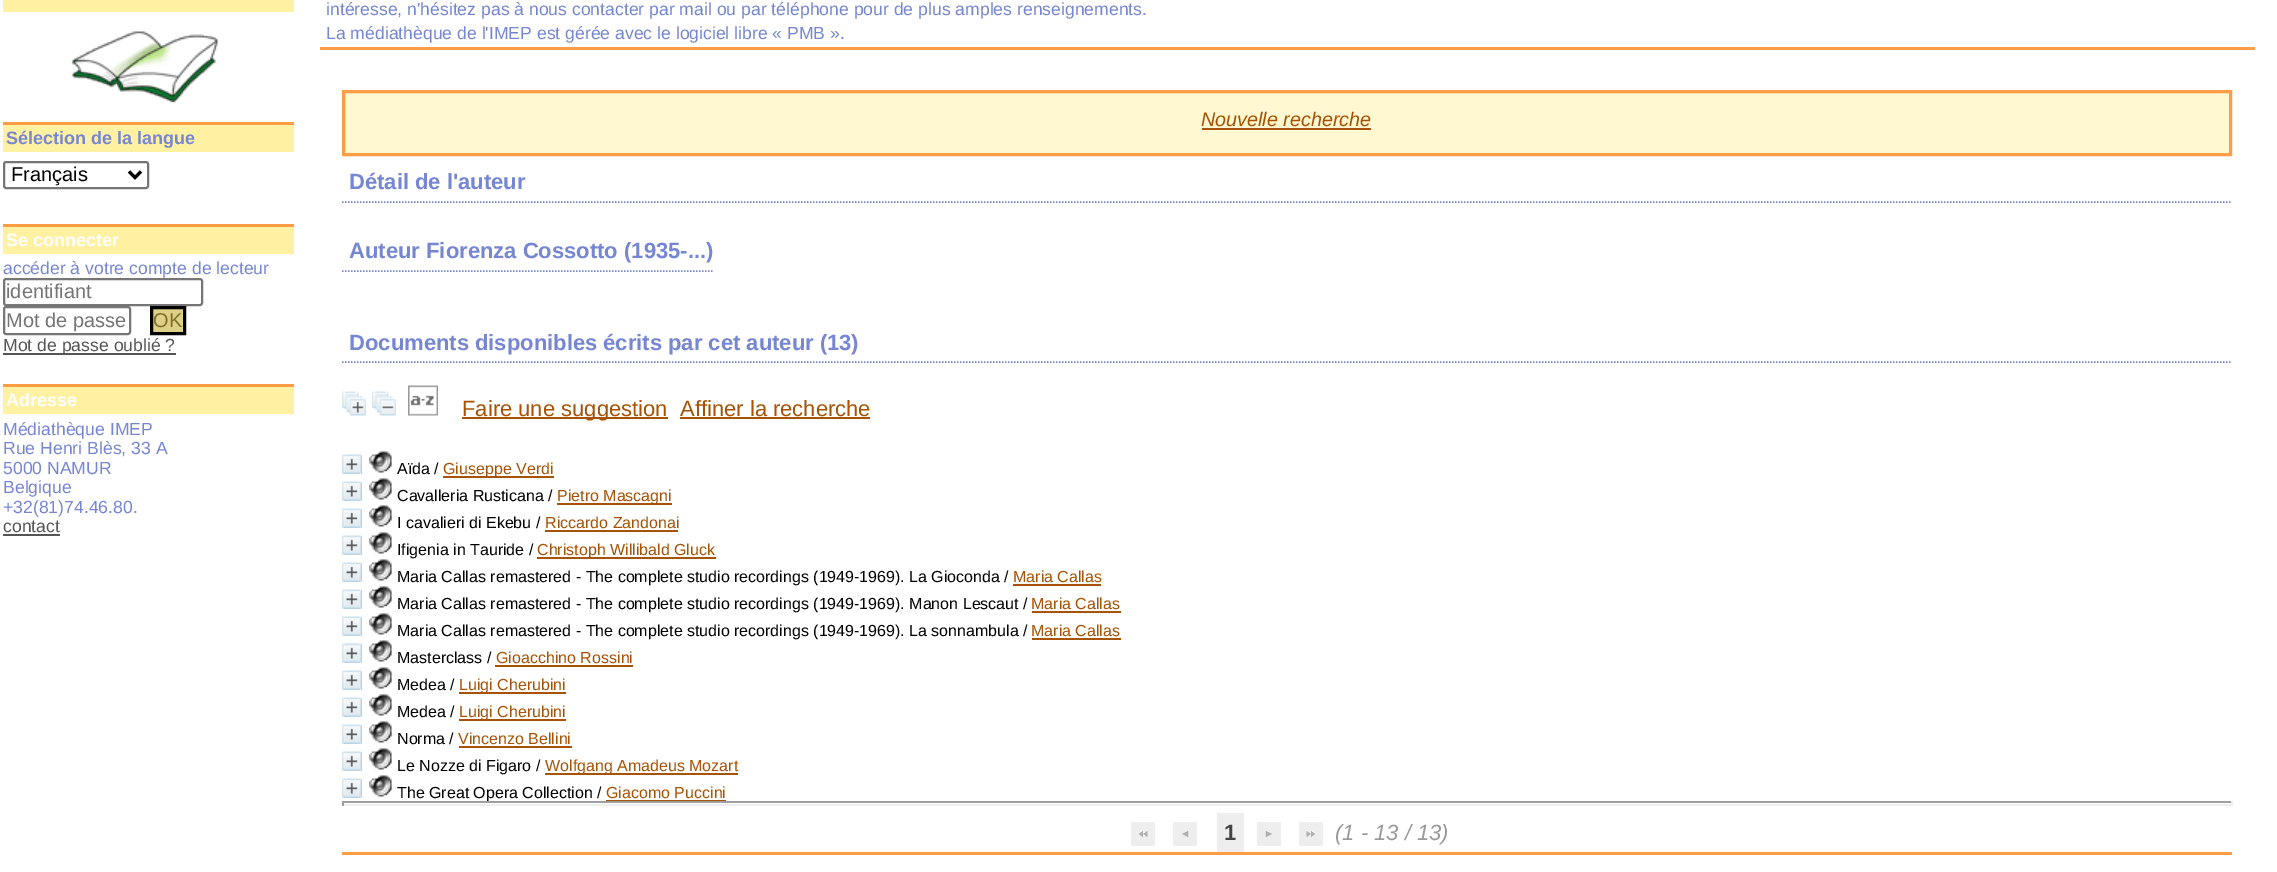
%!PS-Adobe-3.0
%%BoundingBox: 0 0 2277 872
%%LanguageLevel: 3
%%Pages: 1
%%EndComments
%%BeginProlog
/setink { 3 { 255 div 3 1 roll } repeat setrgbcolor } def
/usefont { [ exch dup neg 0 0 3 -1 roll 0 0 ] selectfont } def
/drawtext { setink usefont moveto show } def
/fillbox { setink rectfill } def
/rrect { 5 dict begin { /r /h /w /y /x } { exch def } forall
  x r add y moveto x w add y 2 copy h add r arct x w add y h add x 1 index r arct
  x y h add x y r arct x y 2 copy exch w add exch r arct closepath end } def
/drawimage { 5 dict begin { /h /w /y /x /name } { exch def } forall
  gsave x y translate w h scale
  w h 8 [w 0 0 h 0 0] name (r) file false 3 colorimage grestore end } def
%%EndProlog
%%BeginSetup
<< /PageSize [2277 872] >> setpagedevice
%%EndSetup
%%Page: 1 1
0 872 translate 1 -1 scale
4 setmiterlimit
0 0 2277 872 255 255 255 fillbox
320 47 1935 3 254 157 67 fillbox
(intéresse, n'hésitez pas à nous contacter par mail ou par téléphone pour de plus amples renseignements.) 326 15 /LiberationSans-Regular 17.6 118 134 210 drawtext
(La médiathèque de l'IMEP est gérée avec le logiciel libre « PMB ».) 326 39 /LiberationSans-Regular 17.6 118 134 210 drawtext
3 0 291 12 255 241 162 fillbox
(assets/img1.rgb) 71 31 147 72 drawimage
3 125 291 27 255 241 162 fillbox
3 122 291 3 254 157 67 fillbox
(Sélection de la langue) 6 144 /LiberationSans-Bold 18 118 134 210 drawtext
118 118 118 setink
2 setlinewidth
4 162 144 26 2 rrect stroke
0 0 0 setink
3 setlinewidth
129 171.5 moveto 135 177.5 lineto 141 171.5 lineto stroke
(Français) 11 181 /LiberationSans-Regular 20 0 0 0 drawtext
3 227 291 27 255 241 162 fillbox
3 224 291 3 254 157 67 fillbox
(Se connecter) 6 246 /LiberationSans-Bold 18 255 255 255 drawtext
(accéder à votre compte de lecteur) 3 274 /LiberationSans-Regular 17.6 118 134 210 drawtext
118 118 118 setink
2 setlinewidth
4 279 198 26 2 rrect stroke
(identifiant) 6 298 /LiberationSans-Regular 20 117 117 117 drawtext
118 118 118 setink
4 307 126 27 2 rrect stroke
(Mot de passe) 6 327 /LiberationSans-Regular 20 117 117 117 drawtext
223 208 135 setink
151.5 307.5 moveto 184.5 307.5 lineto 184.5 333.5 lineto 151.5 333.5 lineto closepath gsave fill grestore
0 0 0 setink
3 setlinewidth
stroke
(OK) 153 327 /LiberationSans-Regular 20 127 112 39 drawtext
3 353 173 2 85 85 85 fillbox
(Mot de passe oublié ?) 3 351 /LiberationSans-Regular 17.6 85 85 85 drawtext
3 387 291 27 255 241 162 fillbox
3 384 291 3 254 157 67 fillbox
(Adresse) 6 406 /LiberationSans-Bold 18 255 255 255 drawtext
(Médiathèque IMEP) 3 435 /LiberationSans-Regular 17.6 118 134 210 drawtext
(Rue Henri Blès, 33 A) 3 454 /LiberationSans-Regular 17.6 118 134 210 drawtext
(5000 NAMUR) 3 474 /LiberationSans-Regular 17.6 118 134 210 drawtext
(Belgique) 3 493 /LiberationSans-Regular 17.6 118 134 210 drawtext
(+32\(81\)74.46.80.) 3 513 /LiberationSans-Regular 17.6 118 134 210 drawtext
(contact) 3 532 /LiberationSans-Regular 17.6 85 85 85 drawtext
3 534 57 2 85 85 85 fillbox
255 248 209 setink
343.5 91.5 moveto 2230.5 91.5 lineto 2230.5 154.5 lineto 343.5 154.5 lineto closepath gsave fill grestore
254 157 67 setink
stroke
(Nouvelle recherche) 1201 126 /LiberationSans-Italic 19.75 167 82 4 drawtext
1202 128 169 2 167 82 4 fillbox
118 134 210 setink
1.5 setlinewidth
[1.5 1.5] 0 setdash
342 202 moveto 2232 202 lineto stroke
(Détail de l'auteur) 349 189 /LiberationSans-Bold 22 118 134 210 drawtext
342 271 moveto 712.5 271 lineto stroke
(Auteur Fiorenza Cossotto \(1935-...\)) 349 258 /LiberationSans-Bold 22 118 134 210 drawtext
342 362 moveto 2232 362 lineto stroke
(Documents disponibles écrits par cet auteur \() 349 350 /LiberationSans-Bold 22 118 134 210 drawtext
(13\)) 827 350 /LiberationSans-Bold 22 118 134 210 drawtext
(assets/img2.rgb) 342 391 24 25 drawimage
(assets/img3.rgb) 372 391 24 25 drawimage
(assets/img4.rgb) 408 385 30 31 drawimage
462 417 206 2 167 82 4 fillbox
(Faire une suggestion) 462 416 /LiberationSans-Regular 22 167 82 4 drawtext
(Affiner la recherche) 680 416 /LiberationSans-Regular 22 167 82 4 drawtext
680 417 190 2 167 82 4 fillbox
361 455 1 19 140 198 255 fillbox
(assets/img5.rgb) 342 454 20 20 drawimage
(assets/img6.rgb) 369 451 23 22 drawimage
(Aïda /) 397 474 /LiberationSans-Regular 16 0 0 0 drawtext
443 476 111 2 167 82 4 fillbox
(Giuseppe Verdi) 443 474 /LiberationSans-Regular 16 167 82 4 drawtext
361 482 1 19 140 198 255 fillbox
(assets/img5.rgb) 342 481 20 20 drawimage
(assets/img6.rgb) 369 478 23 22 drawimage
(Cavalleria Rusticana /) 397 501 /LiberationSans-Regular 16 0 0 0 drawtext
557 503 115 2 167 82 4 fillbox
(Pietro Mascagni) 557 501 /LiberationSans-Regular 16 167 82 4 drawtext
361 509 1 19 140 198 255 fillbox
(assets/img5.rgb) 342 508 20 20 drawimage
(assets/img6.rgb) 369 505 23 22 drawimage
(I cavalieri di Ekebu /) 397 528 /LiberationSans-Regular 16 0 0 0 drawtext
(Riccardo Zandonai) 545 528 /LiberationSans-Regular 16 167 82 4 drawtext
545 530 133 2 167 82 4 fillbox
361 536 1 19 140 198 255 fillbox
(assets/img5.rgb) 342 535 20 20 drawimage
(assets/img6.rgb) 369 532 23 22 drawimage
(Ifigenia in Tauride /) 397 555 /LiberationSans-Regular 16 0 0 0 drawtext
537 557 179 2 167 82 4 fillbox
(Christoph Willibald Gluck) 537 555 /LiberationSans-Regular 16 167 82 4 drawtext
361 563 1 19 140 198 255 fillbox
(assets/img5.rgb) 342 562 20 20 drawimage
(assets/img6.rgb) 369 559 23 22 drawimage
(Maria Callas remastered - The complete studio recordings \(1949-1969\). La Gioconda /) 397 582 /LiberationSans-Regular 16 0 0 0 drawtext
(Maria Callas) 1013 582 /LiberationSans-Regular 16 167 82 4 drawtext
1013 584 88 2 167 82 4 fillbox
361 590 1 19 140 198 255 fillbox
(assets/img5.rgb) 342 589 20 20 drawimage
(assets/img6.rgb) 369 586 23 22 drawimage
(Maria Callas remastered - The complete studio recordings \(1949-1969\). Manon Lescaut /) 397 609 /LiberationSans-Regular 16 0 0 0 drawtext
(Maria Callas) 1031 609 /LiberationSans-Regular 16 167 82 4 drawtext
1032 611 89 2 167 82 4 fillbox
361 617 1 19 140 198 255 fillbox
(assets/img5.rgb) 342 616 20 20 drawimage
(assets/img6.rgb) 369 613 23 22 drawimage
(Maria Callas remastered - The complete studio recordings \(1949-1969\). La sonnambula /) 397 636 /LiberationSans-Regular 16 0 0 0 drawtext
(Maria Callas) 1031 636 /LiberationSans-Regular 16 167 82 4 drawtext
1032 638 89 2 167 82 4 fillbox
361 644 1 19 140 198 255 fillbox
(assets/img5.rgb) 342 643 20 20 drawimage
(assets/img6.rgb) 369 640 23 22 drawimage
(Masterclass /) 397 663 /LiberationSans-Regular 16 0 0 0 drawtext
(Gioacchino Rossini) 496 663 /LiberationSans-Regular 16 167 82 4 drawtext
495 665 138 2 167 82 4 fillbox
361 671 1 19 140 198 255 fillbox
(assets/img5.rgb) 342 670 20 20 drawimage
(assets/img6.rgb) 369 667 23 22 drawimage
(Medea /) 397 690 /LiberationSans-Regular 16 0 0 0 drawtext
459 692 107 2 167 82 4 fillbox
(Luigi Cherubini) 459 690 /LiberationSans-Regular 16 167 82 4 drawtext
361 698 1 19 140 198 255 fillbox
(assets/img5.rgb) 342 697 20 20 drawimage
(assets/img6.rgb) 369 694 23 22 drawimage
(Medea /) 397 717 /LiberationSans-Regular 16 0 0 0 drawtext
459 719 107 2 167 82 4 fillbox
(Luigi Cherubini) 459 717 /LiberationSans-Regular 16 167 82 4 drawtext
361 725 1 19 140 198 255 fillbox
(assets/img5.rgb) 342 724 20 20 drawimage
(assets/img6.rgb) 369 721 23 22 drawimage
(Norma /) 397 744 /LiberationSans-Regular 16 0 0 0 drawtext
(Vincenzo Bellini) 458 744 /LiberationSans-Regular 16 167 82 4 drawtext
459 746 113 2 167 82 4 fillbox
361 752 1 19 140 198 255 fillbox
(assets/img5.rgb) 342 751 20 20 drawimage
(assets/img6.rgb) 369 748 23 22 drawimage
(Le Nozze di Figaro /) 397 771 /LiberationSans-Regular 16 0 0 0 drawtext
545 773 193 2 167 82 4 fillbox
(Wolfgang Amadeus Mozart) 545 771 /LiberationSans-Regular 16 167 82 4 drawtext
361 779 1 19 140 198 255 fillbox
(assets/img5.rgb) 342 778 20 20 drawimage
(assets/img6.rgb) 369 775 23 22 drawimage
(The Great Opera Collection /) 397 798 /LiberationSans-Regular 16 0 0 0 drawtext
(Giacomo Puccini) 606 798 /LiberationSans-Regular 16 167 82 4 drawtext
606 800 120 1 167 82 4 fillbox
342 801 1890 2 159 159 159 fillbox
2231 801 2 5 238 238 238 fillbox
342 804 1890 2 238 238 238 fillbox
342 801 2 5 159 159 159 fillbox
1131 822 24 24 238 238 238 fillbox
(assets/img7.rgb) 1138 831 10 7 drawimage
1173 822 24 24 238 238 238 fillbox
(assets/img8.rgb) 1182 831 7 6 drawimage
1217 813 27 39 238 238 238 fillbox
(1) 1224 840 /LiberationSans-Bold 22 68 68 68 drawtext
1257 822 24 24 238 238 238 fillbox
(assets/img9.rgb) 1265 831 7 6 drawimage
1299 822 24 24 238 238 238 fillbox
(assets/img10.rgb) 1306 831 9 6 drawimage
(\(1 - 13 / 13\)) 1335 840 /LiberationSans-Italic 22 153 153 153 drawtext
342 852 1890 3 254 157 67 fillbox
showpage
%%EOF
